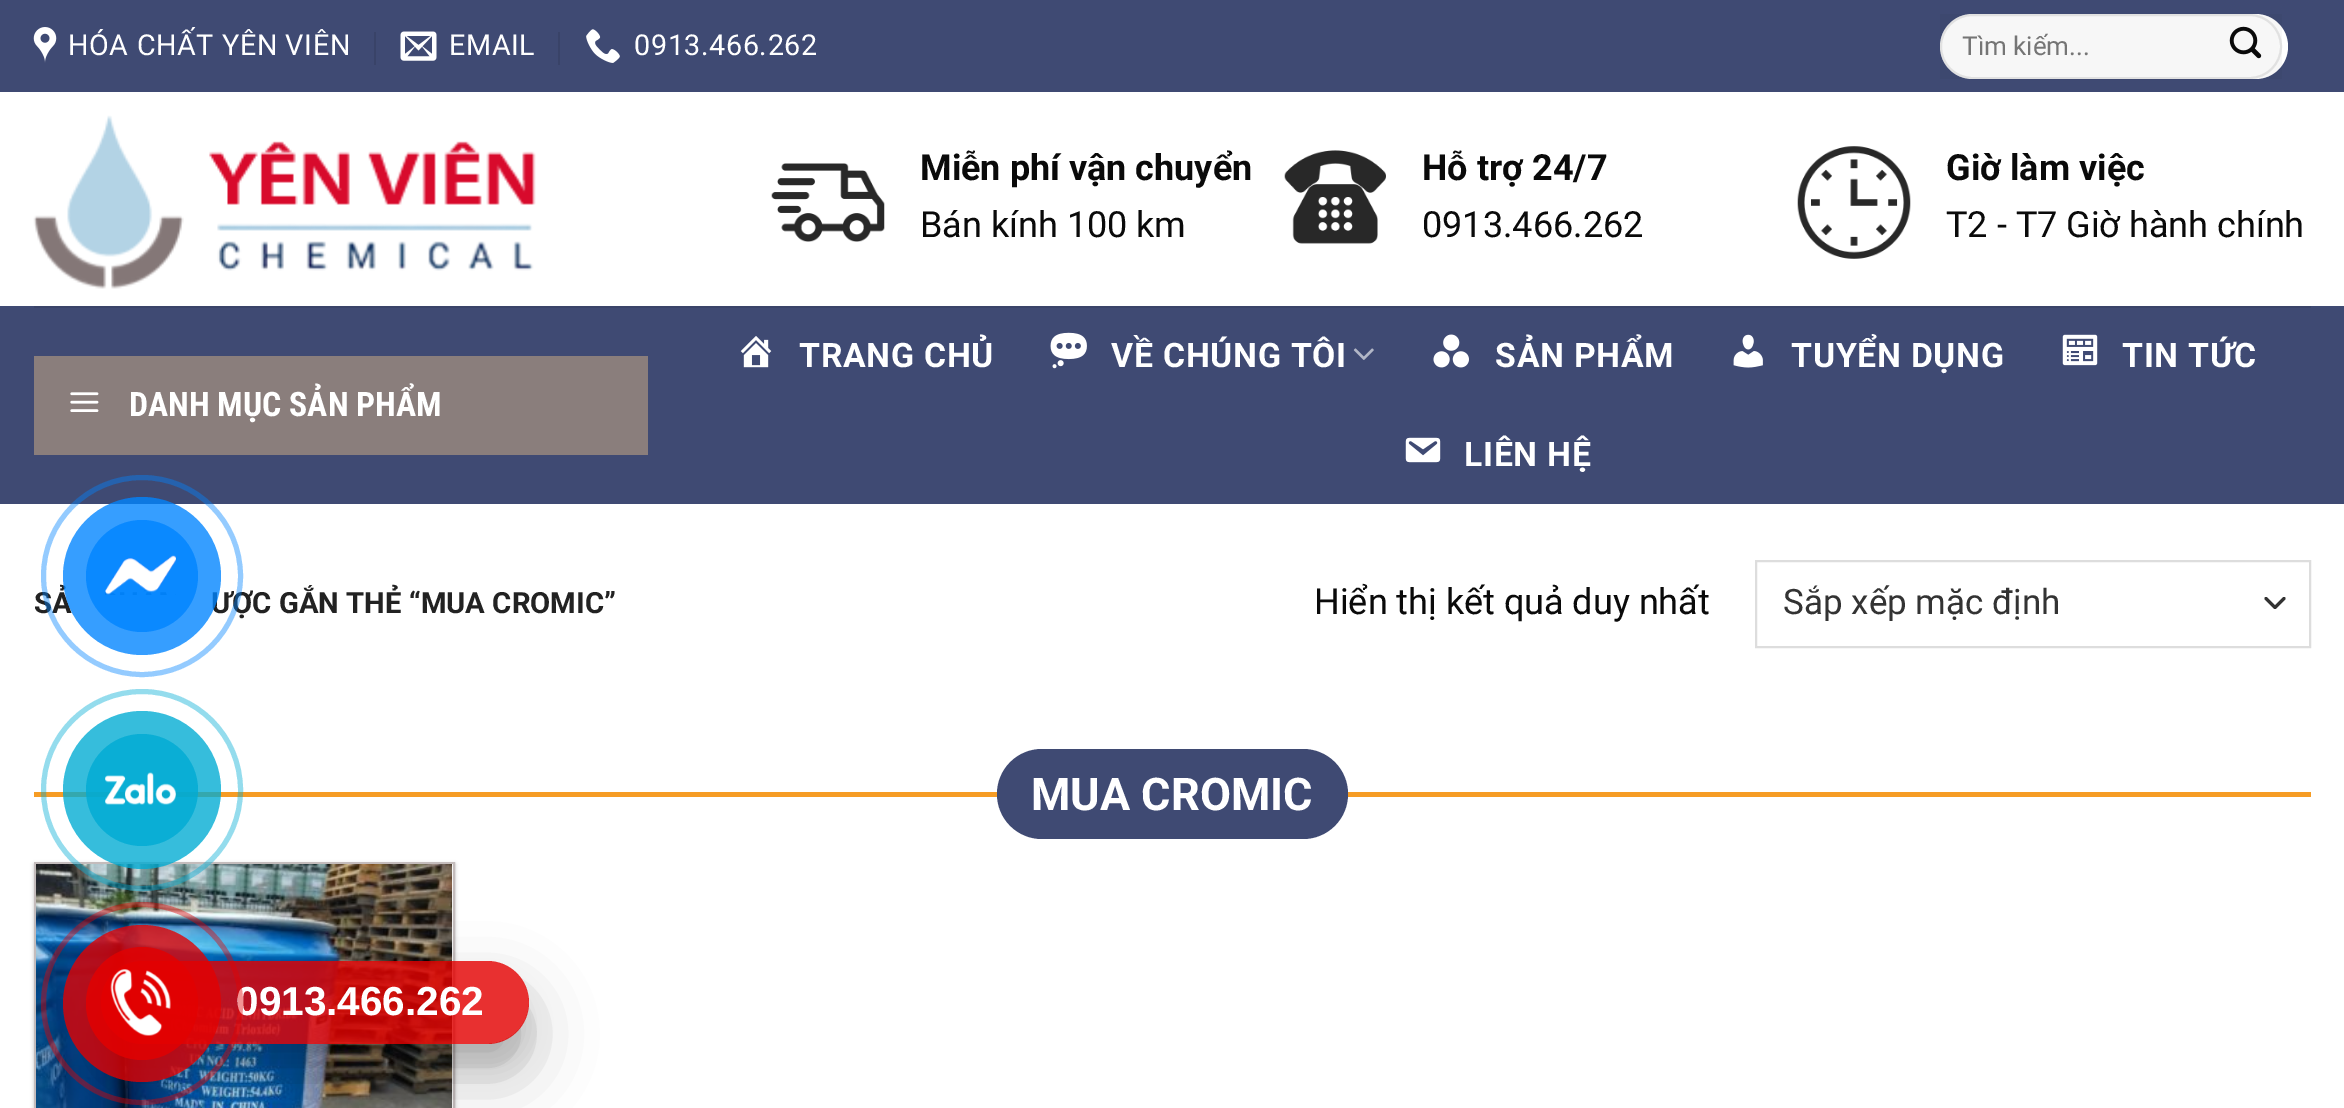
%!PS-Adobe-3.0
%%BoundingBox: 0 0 2344 1108
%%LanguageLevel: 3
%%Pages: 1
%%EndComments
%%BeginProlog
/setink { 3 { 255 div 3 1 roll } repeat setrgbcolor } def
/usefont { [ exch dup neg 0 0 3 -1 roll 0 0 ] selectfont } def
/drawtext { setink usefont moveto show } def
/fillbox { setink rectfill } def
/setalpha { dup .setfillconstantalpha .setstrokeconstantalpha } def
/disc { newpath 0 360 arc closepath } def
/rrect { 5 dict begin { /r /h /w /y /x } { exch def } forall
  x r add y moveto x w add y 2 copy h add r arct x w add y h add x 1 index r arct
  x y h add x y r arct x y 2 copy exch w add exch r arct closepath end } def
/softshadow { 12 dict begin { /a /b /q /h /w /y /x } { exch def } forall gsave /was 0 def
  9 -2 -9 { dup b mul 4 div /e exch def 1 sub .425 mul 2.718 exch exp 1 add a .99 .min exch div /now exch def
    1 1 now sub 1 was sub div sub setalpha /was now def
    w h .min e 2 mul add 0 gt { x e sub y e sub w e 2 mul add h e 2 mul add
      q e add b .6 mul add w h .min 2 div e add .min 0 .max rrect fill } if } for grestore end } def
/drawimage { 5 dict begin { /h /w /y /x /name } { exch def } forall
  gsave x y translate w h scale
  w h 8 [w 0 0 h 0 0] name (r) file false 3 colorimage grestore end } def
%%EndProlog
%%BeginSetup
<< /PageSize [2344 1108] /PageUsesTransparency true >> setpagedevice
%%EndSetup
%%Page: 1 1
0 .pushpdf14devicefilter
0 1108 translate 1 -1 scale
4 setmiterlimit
0 0 2344 1108 255 255 255 fillbox
0 0 2344 92 63 74 115 fillbox
(assets/img1.rgb) 33 27 24 36 drawimage
/Roboto-Regular 28.75 usefont
255 255 255 setink
68 55 moveto 0.6 0 (HÓA CHẤT YÊN VIÊN) ashow
374 32 2 33 57 67 104 fillbox
(assets/img2.rgb) 400 31 37 30 drawimage
255 255 255 setink
449 55 moveto 0.6 0 (EMAIL) ashow
558 32 2 33 57 67 104 fillbox
(assets/img3.rgb) 586 29 34 34 drawimage
255 255 255 setink
634 55 moveto 0.6 0 (0913.466.262) ashow
1940 14 348 65 32.5 rrect fill
0.03 setalpha
1940 14 342 65 0 0 0 fillbox
0.09 setalpha
2 setlinewidth
1941 15 340 63 31.5 rrect stroke
1 setalpha
(Tìm kiếm...) 1962 55 /Roboto-Regular 26 117 117 117 drawtext
(assets/img4.rgb) 2229 26 33 33 drawimage
(assets/img5.rgb) 33 115 503 174 drawimage
(assets/img6.rgb) 771 163 114 79 drawimage
(Miễn phí vận chuyển) 920 180 /Roboto-Bold 36 10 10 10 drawtext
(Bán kính 100 km) 920 237 /Roboto-Regular 36 10 10 10 drawtext
(assets/img7.rgb) 1284 150 102 94 drawimage
(Hỗ trợ 24/7) 1422 180 /Roboto-Bold 36 10 10 10 drawtext
(0913.466.262) 1422 237 /Roboto-Regular 36 10 10 10 drawtext
(assets/img8.rgb) 1797 146 114 113 drawimage
(Giờ làm việc) 1946 180 /Roboto-Bold 36 10 10 10 drawtext
(T2 - T7 Giờ hành chính) 1946 237 /Roboto-Regular 36 10 10 10 drawtext
0 306 2344 198 63 74 115 fillbox
34 306 2277 2 58 68 105 fillbox
34 356 614 99 138 126 124 fillbox
(assets/img9.rgb) 70 392 29 20 drawimage
(DANH MỤC SẢN PHẨM) 129 416 /RobotoCondensed-Bold 33.75 255 255 255 drawtext
(assets/img10.rgb) 740 336 32 32 drawimage
/Roboto-Bold 33.75 usefont
799 367 moveto 0.75 0 (TRANG CHỦ) ashow
(assets/img11.rgb) 1050 332 37 37 drawimage
1111 367 moveto 0.75 0 (VỀ CHÚNG TÔI) ashow
(assets/img12.rgb) 1353 348 21 12 drawimage
(assets/img13.rgb) 1433 334 36 34 drawimage
1495 367 moveto 0.75 0 (SẢN PHẨM) ashow
(assets/img14.rgb) 1733 334 30 34 drawimage
1791 367 moveto 0.75 0 (TUYỂN DỤNG) ashow
(assets/img15.rgb) 2062 334 36 32 drawimage
2122 367 moveto 0.75 0 (TIN TỨC) ashow
(assets/img16.rgb) 1405 437 36 26 drawimage
1464 466 moveto 0.75 0 (LIÊN HỆ) ashow
(SẢ) 34 613 /Roboto-Bold 29.25 34 34 34 drawtext
(ƯỢC GẮN THẺ “MUA CROMIC”) 211 613 /Roboto-Bold 29.25 34 34 34 drawtext
(Hiển thị kết quả duy nhất) 1314 614 /Roboto-Regular 36 10 10 10 drawtext
51 51 51 setink
3 setlinewidth
1 setlinecap
1 setlinejoin
2266 598.5 moveto 2275 607.5 lineto 2284 598.5 lineto stroke
221 221 221 setink
2 setlinewidth
0 setlinecap
0 setlinejoin
1756 561 554 86 rectstroke
(Sắp xếp mặc định) 1783 614 /Roboto-Regular 35 51 51 51 drawtext
34 792 963 5 246 156 36 fillbox
63 74 115 setink
997 749 351 90 45 rrect fill
(MUA CROMIC) 1031 810 /Roboto-Bold 45 255 255 255 drawtext
1348 792 963 5 246 156 36 fillbox
0 0 0 setink
34 864 421 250 0 2 0.24 softshadow
452 864 1 244 255 255 255 fillbox
196 188 188 setink
35 863 419 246 rectstroke
(assets/img17.rgb) 36 864 417 244 drawimage
0.42 setalpha
0 132 255 setink
5 setlinewidth
142 576 98.5 disc stroke
0.79 setalpha
142 576 79 disc fill
0.81 setalpha
142 576 56 disc fill
1 setalpha
(assets/img18.rgb) 105 555 71 40 drawimage
0.42 setalpha
0 171 211 setink
142 790 98.5 disc stroke
0.79 setalpha
142 790 79 disc fill
0.81 setalpha
142 790 56 disc fill
1 setalpha
(assets/img19.rgb) 105 772 71 33 drawimage
gsave
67 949 moveto 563 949 lineto 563 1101 lineto 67 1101 lineto closepath 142.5 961 moveto 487.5 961 lineto 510.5 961 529 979.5 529 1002.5 curveto 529 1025.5 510.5 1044 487.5 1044 curveto 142.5 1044 lineto 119.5 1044 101 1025.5 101 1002.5 curveto 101 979.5 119.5 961 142.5 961 curveto closepath eoclip newpath
0 0 0 setink
101 983 428 84 42 11 0.1 softshadow
grestore
gsave
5 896 moveto 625 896 lineto 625 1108 lineto 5 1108 lineto closepath 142.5 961 moveto 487.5 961 lineto 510.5 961 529 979.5 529 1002.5 curveto 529 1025.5 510.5 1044 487.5 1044 curveto 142.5 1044 lineto 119.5 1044 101 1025.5 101 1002.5 curveto 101 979.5 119.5 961 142.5 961 curveto closepath eoclip newpath
0 0 0 setink
101 992 428 84 42 31.5 0.25 softshadow
grestore
0.81 setalpha
227 0 0 setink
101 961 428 83 41.5 rrect fill
1 setalpha
(0913.466.262) 236 1015 /LiberationSans-Bold 40.5 255 255 255 drawtext
0.42 setalpha
227 0 0 setink
43.5 904.5 197 198 98.5 rrect stroke
0.79 setalpha
63 925 158 157 78.5 rrect fill
0.81 setalpha
86 947 112 113 56 rrect fill
1 setalpha
(assets/img20.rgb) 110 969 61 67 drawimage
.poppdf14devicefilter showpage
%%EOF
